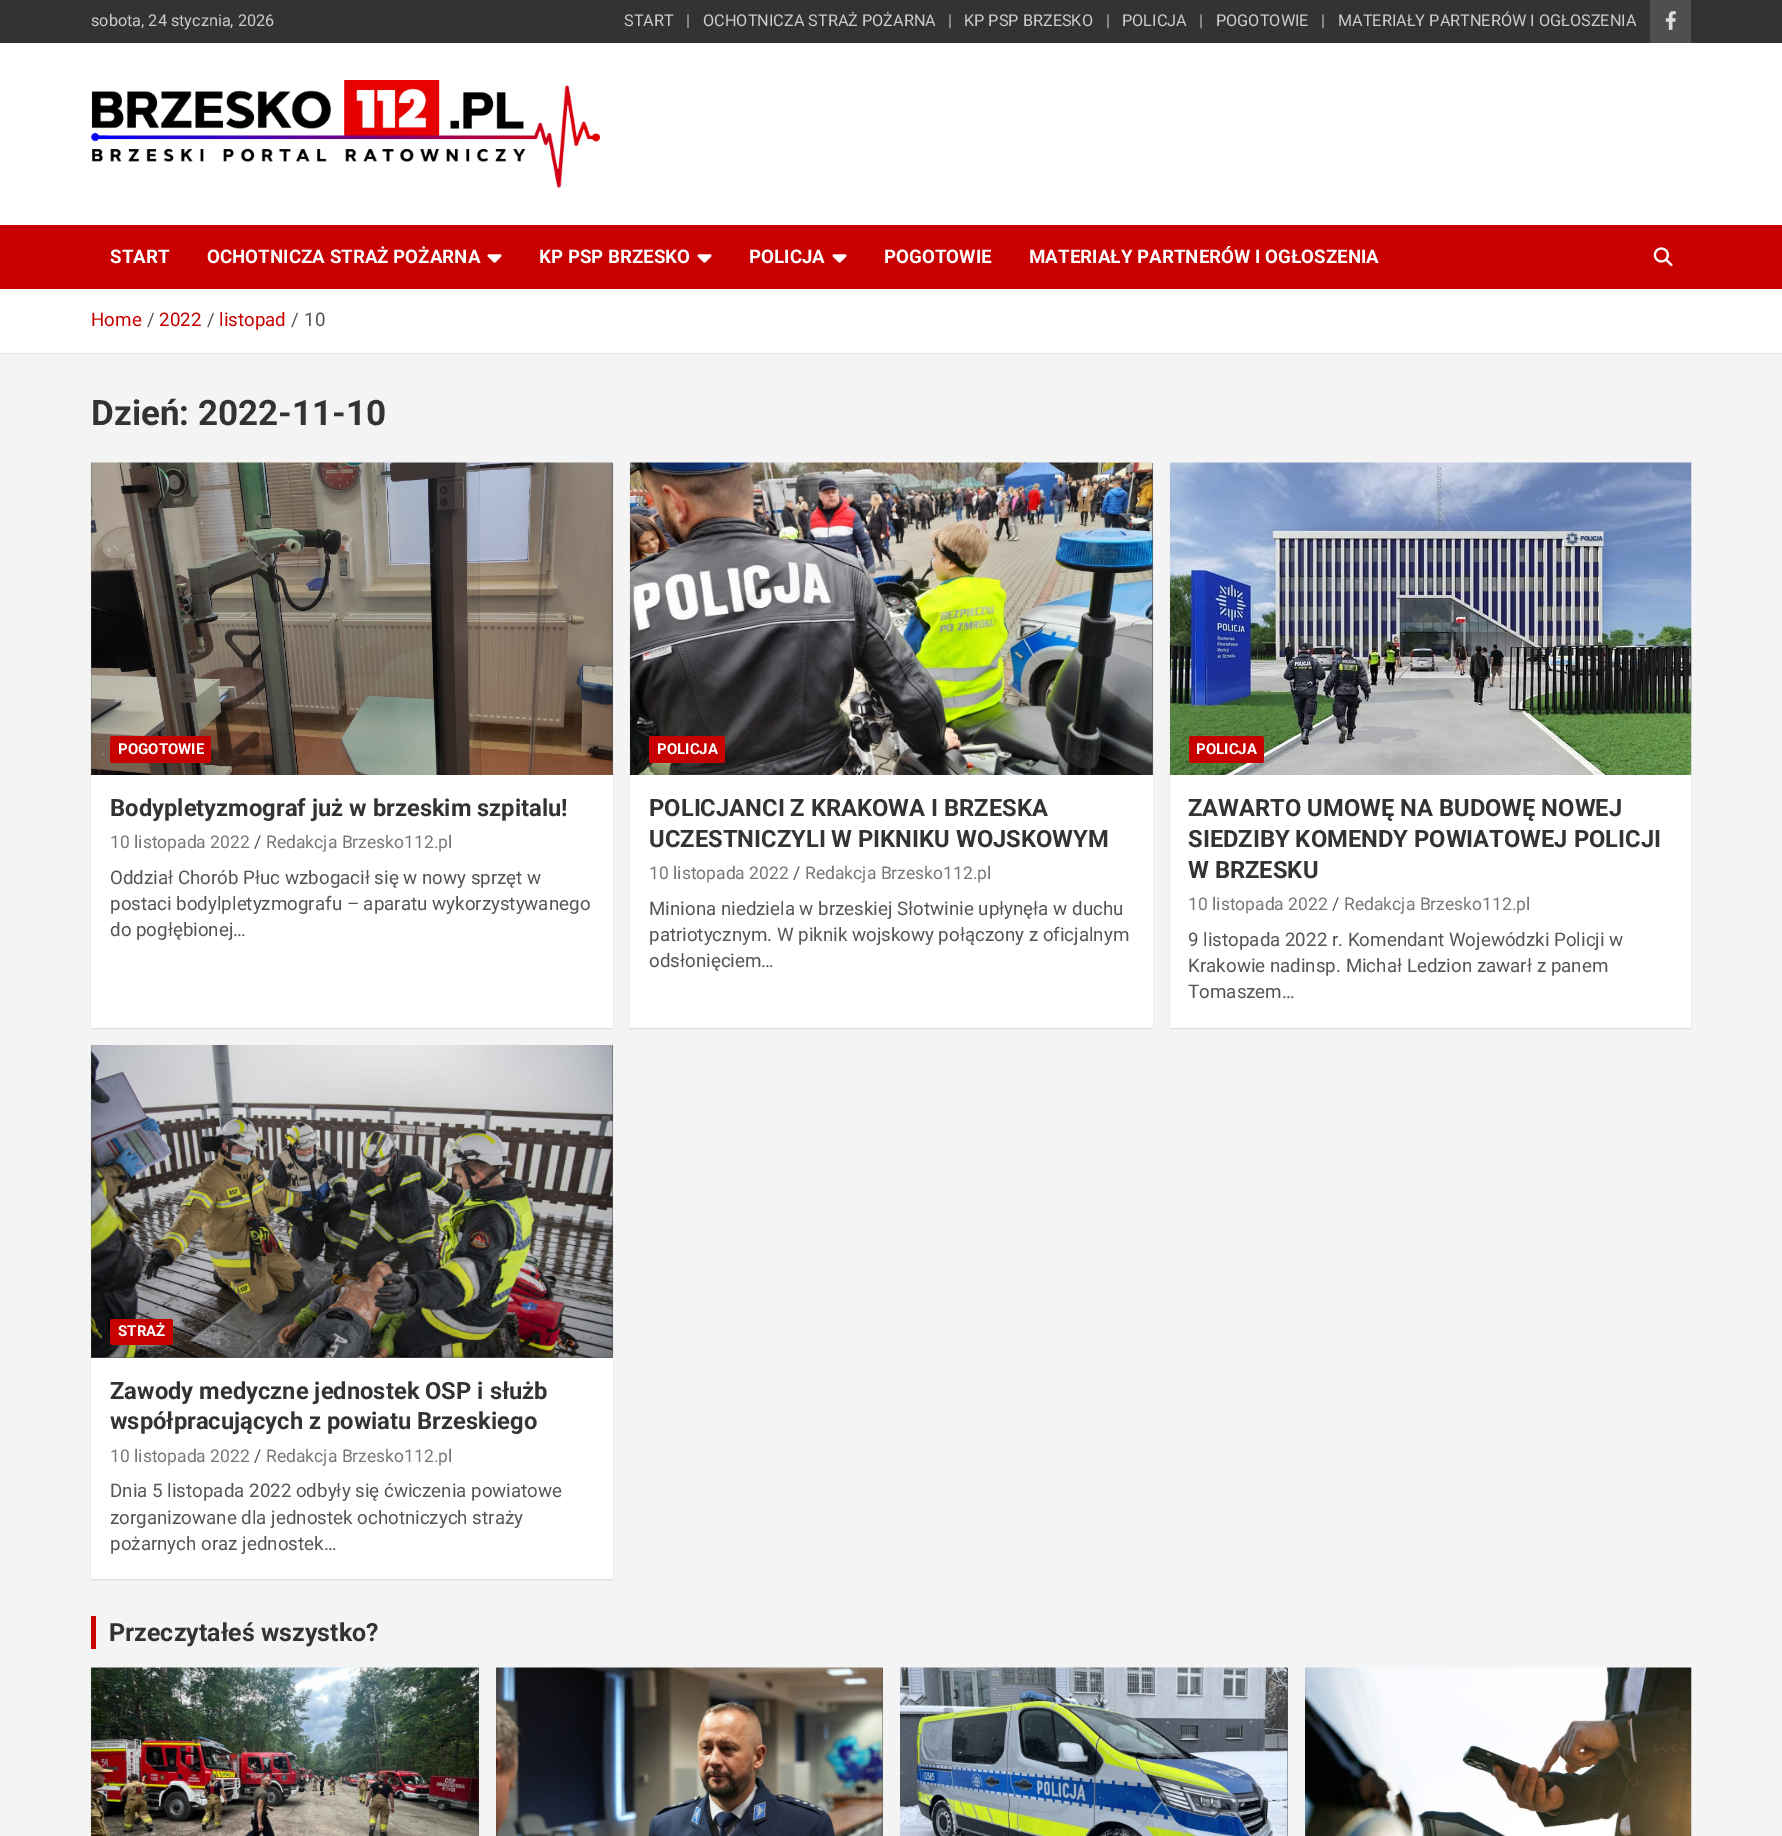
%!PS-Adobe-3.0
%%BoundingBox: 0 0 1782 1836
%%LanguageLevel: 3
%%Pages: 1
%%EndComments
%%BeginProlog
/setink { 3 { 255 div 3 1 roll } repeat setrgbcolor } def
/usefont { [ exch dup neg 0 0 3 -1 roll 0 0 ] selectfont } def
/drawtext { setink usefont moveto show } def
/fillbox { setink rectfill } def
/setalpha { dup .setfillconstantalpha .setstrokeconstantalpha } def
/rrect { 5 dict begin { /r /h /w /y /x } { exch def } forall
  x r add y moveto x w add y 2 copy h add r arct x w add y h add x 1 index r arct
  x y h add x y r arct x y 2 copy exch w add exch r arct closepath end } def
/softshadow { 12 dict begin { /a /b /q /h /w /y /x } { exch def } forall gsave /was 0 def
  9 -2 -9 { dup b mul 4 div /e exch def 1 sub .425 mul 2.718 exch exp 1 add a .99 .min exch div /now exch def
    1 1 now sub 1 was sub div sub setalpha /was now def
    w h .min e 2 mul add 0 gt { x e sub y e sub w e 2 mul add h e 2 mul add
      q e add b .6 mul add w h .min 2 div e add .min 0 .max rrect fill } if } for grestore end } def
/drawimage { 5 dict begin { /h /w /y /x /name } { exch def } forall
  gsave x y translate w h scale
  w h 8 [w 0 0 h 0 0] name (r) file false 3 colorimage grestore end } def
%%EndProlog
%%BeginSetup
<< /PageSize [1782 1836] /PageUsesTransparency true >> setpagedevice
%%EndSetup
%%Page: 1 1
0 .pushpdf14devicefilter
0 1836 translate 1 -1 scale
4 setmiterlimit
0 0 1782 1836 244 244 244 fillbox
0 0 1782 43 51 51 51 fillbox
(sobota, 24 stycznia, 2026) 91 26 /Roboto-Regular 16.25 204 204 204 drawtext
(START) 624 26 /Roboto-Regular 16.25 204 204 204 drawtext
(|) 686 26 /Roboto-Regular 16.25 204 204 204 drawtext
(OCHOTNICZA STRAŻ POŻARNA) 703 26 /Roboto-Regular 16.25 204 204 204 drawtext
(|) 948 26 /Roboto-Regular 16.25 204 204 204 drawtext
(KP PSP BRZESKO) 964 26 /Roboto-Regular 16.25 204 204 204 drawtext
(|) 1106 26 /Roboto-Regular 16.25 204 204 204 drawtext
(POLICJA) 1122 26 /Roboto-Regular 16.25 204 204 204 drawtext
(|) 1199 26 /Roboto-Regular 16.25 204 204 204 drawtext
(POGOTOWIE) 1216 26 /Roboto-Regular 16.25 204 204 204 drawtext
(|) 1321 26 /Roboto-Regular 16.25 204 204 204 drawtext
(MATERIAŁY PARTNERÓW I OGŁOSZENIA) 1338 26 /Roboto-Regular 16.25 204 204 204 drawtext
1650 0 41 43 79 79 79 fillbox
(assets/img1.rgb) 1665 11 11 19 drawimage
0 43 1782 182 255 255 255 fillbox
(assets/img2.rgb) 91 80 509 108 drawimage
0 225 1782 64 200 0 0 fillbox
(START) 110 263 /Roboto-Bold 18.75 255 255 255 drawtext
(OCHOTNICZA STRAŻ POŻARNA) 207 263 /Roboto-Bold 18.75 255 255 255 drawtext
(assets/img3.rgb) 487 254 15 9 drawimage
(KP PSP BRZESKO) 539 263 /Roboto-Bold 18.75 255 255 255 drawtext
(assets/img3.rgb) 697 254 15 9 drawimage
(POLICJA) 749 263 /Roboto-Bold 18.75 255 255 255 drawtext
(assets/img3.rgb) 832 254 15 9 drawimage
(POGOTOWIE) 884 263 /Roboto-Bold 18.75 255 255 255 drawtext
(MATERIAŁY PARTNERÓW I OGŁOSZENIA) 1029 263 /Roboto-Bold 18.75 255 255 255 drawtext
(assets/img4.rgb) 1653 247 20 20 drawimage
0 289 1782 64 255 255 255 fillbox
0 353 1782 1 230 230 230 fillbox
(Home) 91 326 /Roboto-Regular 18.75 200 0 0 drawtext
(/) 147 326 /Roboto-Regular 18.75 85 85 85 drawtext
(2022) 159 326 /Roboto-Regular 18.75 200 0 0 drawtext
(/) 207 326 /Roboto-Regular 18.75 85 85 85 drawtext
(listopad) 219 326 /Roboto-Regular 18.75 200 0 0 drawtext
(/) 291 326 /Roboto-Regular 18.75 85 85 85 drawtext
(10) 304 326 /Roboto-Regular 18.75 85 85 85 drawtext
(Dzień: 2022-11-10) 91 425 /Roboto-Bold 35 51 51 51 drawtext
0 0 0 setink
91 464 522 565 0 0.5 0.1 softshadow
91 775 522 253 255 255 255 fillbox
91 463 522 312 85 85 85 fillbox
(assets/img5.rgb) 91 462 522 313 drawimage
200 0 0 setink
110 736 101 27 2.5 rrect fill
(POGOTOWIE) 118 754 /Roboto-Bold 15 255 255 255 drawtext
(Bodypletyzmograf już w brzeskim szpitalu!) 110 816 /Roboto-Bold 23.75 51 51 51 drawtext
(10 listopada 2022) 110 848 /Roboto-Regular 17.5 119 119 119 drawtext
(/) 254 848 /Roboto-Regular 17.5 85 85 85 drawtext
(Redakcja Brzesko112.pl) 266 848 /Roboto-Regular 17.5 119 119 119 drawtext
(Oddział Chorób Płuc wzbogacił się w nowy sprzęt w) 110 884 /Roboto-Regular 18.75 85 85 85 drawtext
(postaci bodylpletyzmografu – aparatu wykorzystywanego) 110 910 /Roboto-Regular 18.75 85 85 85 drawtext
(do pogłębionej…) 110 936 /Roboto-Regular 18.75 85 85 85 drawtext
0 0 0 setink
630 464 523 565 0 0.5 0.1 softshadow
630 775 523 253 255 255 255 fillbox
1152 463 1 312 85 85 85 fillbox
(assets/img6.rgb) 630 462 523 313 drawimage
200 0 0 setink
649 736 76 27 2.5 rrect fill
(POLICJA) 657 754 /Roboto-Bold 15 255 255 255 drawtext
(POLICJANCI Z KRAKOWA I BRZESKA) 649 816 /Roboto-Bold 23.75 51 51 51 drawtext
(UCZESTNICZYLI W PIKNIKU WOJSKOWYM) 649 847 /Roboto-Bold 23.75 51 51 51 drawtext
(10 listopada 2022) 649 879 /Roboto-Regular 17.5 119 119 119 drawtext
(/) 793 879 /Roboto-Regular 17.5 85 85 85 drawtext
(Redakcja Brzesko112.pl) 805 879 /Roboto-Regular 17.5 119 119 119 drawtext
(Miniona niedziela w brzeskiej Słotwinie upłynęła w duchu) 649 915 /Roboto-Regular 18.75 85 85 85 drawtext
(patriotycznym. W piknik wojskowy połączony z oficjalnym) 649 941 /Roboto-Regular 18.75 85 85 85 drawtext
(odsłonięciem…) 649 967 /Roboto-Regular 18.75 85 85 85 drawtext
0 0 0 setink
1170 464 521 565 0 0.5 0.1 softshadow
1170 775 521 253 255 255 255 fillbox
(assets/img7.rgb) 1170 462 522 313 drawimage
200 0 0 setink
1189 736 75 27 2.5 rrect fill
(POLICJA) 1196 754 /Roboto-Bold 15 255 255 255 drawtext
(ZAWARTO UMOWĘ NA BUDOWĘ NOWEJ) 1188 816 /Roboto-Bold 23.75 51 51 51 drawtext
(SIEDZIBY KOMENDY POWIATOWEJ POLICJI) 1188 847 /Roboto-Bold 23.75 51 51 51 drawtext
(W BRZESKU) 1188 878 /Roboto-Bold 23.75 51 51 51 drawtext
(10 listopada 2022) 1188 910 /Roboto-Regular 17.5 119 119 119 drawtext
(/) 1332 910 /Roboto-Regular 17.5 85 85 85 drawtext
(Redakcja Brzesko112.pl) 1344 910 /Roboto-Regular 17.5 119 119 119 drawtext
(9 listopada 2022 r. Komendant Wojewódzki Policji w) 1188 946 /Roboto-Regular 18.75 85 85 85 drawtext
(Krakowie nadinsp. Michał Ledzion zawarł z panem) 1188 972 /Roboto-Regular 18.75 85 85 85 drawtext
(Tomaszem…) 1188 998 /Roboto-Regular 18.75 85 85 85 drawtext
0 0 0 setink
91 1046 522 534 0 0.5 0.1 softshadow
91 1358 522 221 255 255 255 fillbox
91 1045 522 313 85 85 85 fillbox
(assets/img8.rgb) 91 1045 522 313 drawimage
200 0 0 setink
110 1319 63 26 2.5 rrect fill
(STRAŻ) 118 1336 /Roboto-Bold 15 255 255 255 drawtext
(Zawody medyczne jednostek OSP i służb) 110 1399 /Roboto-Bold 23.75 51 51 51 drawtext
(współpracujących z powiatu Brzeskiego) 110 1429 /Roboto-Bold 23.75 51 51 51 drawtext
(10 listopada 2022) 110 1462 /Roboto-Regular 17.5 119 119 119 drawtext
(/) 254 1462 /Roboto-Regular 17.5 85 85 85 drawtext
(Redakcja Brzesko112.pl) 266 1462 /Roboto-Regular 17.5 119 119 119 drawtext
(Dnia 5 listopada 2022 odbyły się ćwiczenia powiatowe) 110 1497 /Roboto-Regular 18.75 85 85 85 drawtext
(zorganizowane dla jednostek ochotniczych straży) 110 1524 /Roboto-Regular 18.75 85 85 85 drawtext
(pożarnych oraz jednostek…) 110 1550 /Roboto-Regular 18.75 85 85 85 drawtext
91 1616 5 33 200 0 0 fillbox
(Przeczytałeś wszystko?) 109 1641 /Roboto-Bold 25 51 51 51 drawtext
0 0 0 setink
91 1669 388 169 0 0.5 0.1 softshadow
(assets/img9.rgb) 91 1667 388 169 drawimage
496 1668 387 168 85 85 85 fillbox
(assets/img10.rgb) 496 1667 387 169 drawimage
1287 1668 1 168 85 85 85 fillbox
(assets/img11.rgb) 900 1667 388 169 drawimage
(assets/img12.rgb) 1305 1667 387 169 drawimage
.poppdf14devicefilter showpage
%%EOF
